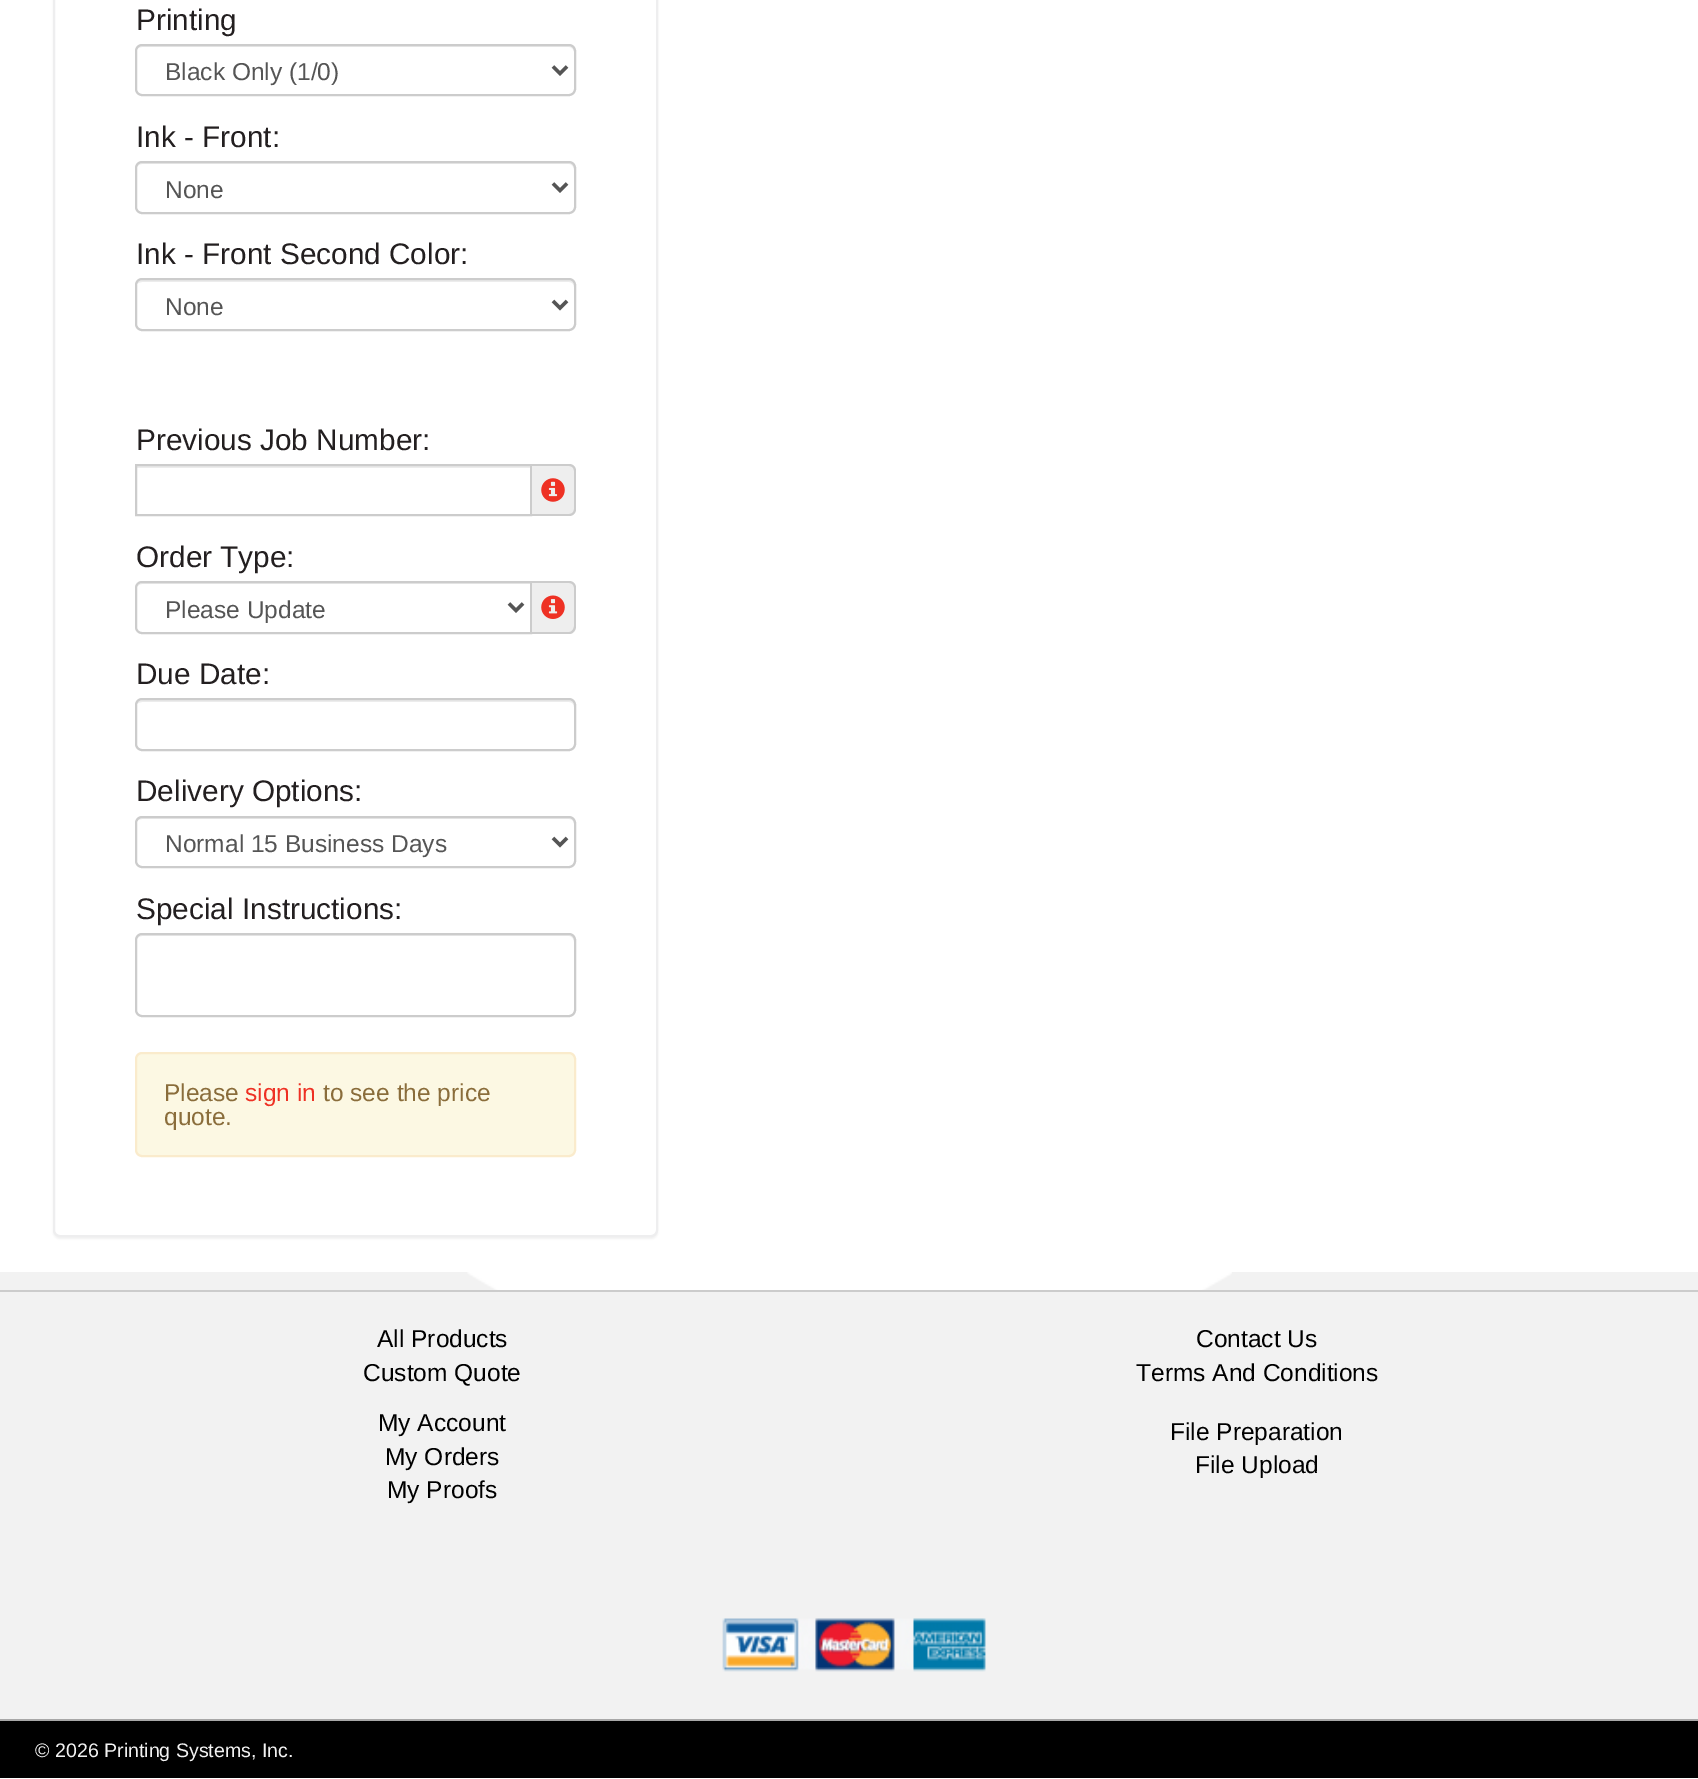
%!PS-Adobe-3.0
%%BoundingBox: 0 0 1698 1779
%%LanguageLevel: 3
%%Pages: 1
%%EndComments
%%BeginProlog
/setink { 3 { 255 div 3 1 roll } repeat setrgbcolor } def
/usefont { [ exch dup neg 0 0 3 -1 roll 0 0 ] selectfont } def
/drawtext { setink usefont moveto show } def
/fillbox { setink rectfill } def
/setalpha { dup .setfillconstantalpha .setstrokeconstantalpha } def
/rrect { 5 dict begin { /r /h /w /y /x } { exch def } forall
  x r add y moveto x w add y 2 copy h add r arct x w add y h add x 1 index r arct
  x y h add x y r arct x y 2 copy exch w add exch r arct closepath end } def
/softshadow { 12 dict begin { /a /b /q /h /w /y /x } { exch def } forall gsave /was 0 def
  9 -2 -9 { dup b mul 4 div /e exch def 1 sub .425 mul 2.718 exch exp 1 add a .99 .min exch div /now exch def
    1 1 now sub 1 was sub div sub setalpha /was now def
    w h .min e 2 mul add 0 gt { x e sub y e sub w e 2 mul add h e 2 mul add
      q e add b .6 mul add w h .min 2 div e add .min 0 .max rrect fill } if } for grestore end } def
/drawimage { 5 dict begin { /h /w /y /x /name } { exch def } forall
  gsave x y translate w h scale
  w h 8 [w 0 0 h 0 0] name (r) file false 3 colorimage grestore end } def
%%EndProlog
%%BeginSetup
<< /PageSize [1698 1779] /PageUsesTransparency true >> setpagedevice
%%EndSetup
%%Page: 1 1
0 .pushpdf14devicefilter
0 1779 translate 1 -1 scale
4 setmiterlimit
0 0 1698 1779 255 255 255 fillbox
gsave
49 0 moveto 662 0 lineto 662 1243 lineto 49 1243 lineto closepath 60 -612 moveto 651 -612 lineto 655 -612 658 -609 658 -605 curveto 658 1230 lineto 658 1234 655 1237 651 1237 curveto 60 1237 lineto 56 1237 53 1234 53 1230 curveto 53 -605 lineto 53 -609 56 -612 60 -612 curveto closepath eoclip newpath
0 0 0 setink
53 -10 605 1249 7 1 0.05 softshadow
grestore
238 238 239 setink
2 setlinewidth
54 -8 603 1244 6 rrect stroke
(Printing) 136 30 /LiberationSans-Regular 29.75 35 31 32 drawtext
236 236 236 setink
142 47 moveto 569 47 lineto 572 47 574 50 574 52 curveto 574 51 lineto 574 48 572 46 569 46 curveto 142 46 lineto 140 46 138 47 137 49 curveto 138 48 140 47 142 47 curveto closepath fill
204 204 204 setink
136 45 439 50 6 rrect stroke
85 85 85 setink
3.5 setlinewidth
553 66.5 moveto 560 73.5 lineto 567 66.5 lineto stroke
(Black Only \(1/0\)) 165 80 /LiberationSans-Regular 24.5 85 85 85 drawtext
(Ink - Front:) 136 147 /LiberationSans-Regular 29.75 35 31 32 drawtext
236 236 236 setink
142 164 moveto 569 164 lineto 572 164 574 167 574 170 curveto 574 168 lineto 574 165 572 163 569 163 curveto 142 163 lineto 140 163 138 165 137 167 curveto 138 165 140 164 142 164 curveto closepath fill
204 204 204 setink
2 setlinewidth
136 162 439 51 6 rrect stroke
85 85 85 setink
3.5 setlinewidth
553 183.5 moveto 560 190.5 lineto 567 183.5 lineto stroke
(None) 165 198 /LiberationSans-Regular 24.5 85 85 85 drawtext
(Ink - Front Second Color:) 136 264 /LiberationSans-Regular 29.75 35 31 32 drawtext
236 236 236 setink
142 282 moveto 569 282 lineto 572 282 574 284 574 287 curveto 574 284 573 280 569 280 curveto 142 280 lineto 140 280 137 282 137 284 curveto 138 283 140 282 142 282 curveto closepath fill
204 204 204 setink
2 setlinewidth
136 279 439 51 6 rrect stroke
85 85 85 setink
3.5 setlinewidth
553 301 moveto 560 308 lineto 567 301 lineto stroke
(None) 165 315 /LiberationSans-Regular 24.5 85 85 85 drawtext
(Previous Job Number:) 136 450 /LiberationSans-Regular 29.75 35 31 32 drawtext
137 466 393 2 236 236 236 fillbox
204 204 204 setink
2 setlinewidth
136 465 395 50 rectstroke
238 238 238 setink
532 464 moveto 569 464 lineto 573 464 576 467 576 471 curveto 576 509 lineto 576 513 573 516 569 516 curveto 532 516 lineto closepath fill
204 204 204 setink
532 464 moveto 569 464 lineto 573 464 576 467 576 471 curveto 576 509 lineto 576 513 573 516 569 516 curveto 532 516 lineto closepath 532 466 moveto 569 466 lineto 572 466 574 468 574 471 curveto 574 509 lineto 574 512 572 514 569 514 curveto 532 514 lineto closepath eofill
(assets/img1.rgb) 541 478 24 24 drawimage
(Order Type:) 136 567 /LiberationSans-Regular 29.75 35 31 32 drawtext
236 236 236 setink
142 584 moveto 530 584 lineto 530 583 lineto 142 583 lineto 140 583 138 585 137 587 curveto 138 585 140 584 142 584 curveto closepath fill
204 204 204 setink
142 582 moveto 531 582 lineto 531 633 lineto 142 633 lineto 138.5 633 136 630.5 136 627 curveto 136 588 lineto 136 584.5 138.5 582 142 582 curveto closepath stroke
85 85 85 setink
3.5 setlinewidth
509 603.5 moveto 516 610.5 lineto 523 603.5 lineto stroke
(Please Update) 165 618 /LiberationSans-Regular 24.5 85 85 85 drawtext
238 238 238 setink
532 581 moveto 569 581 lineto 573 581 576 584 576 588 curveto 576 627 lineto 576 631 573 634 569 634 curveto 532 634 lineto closepath fill
204 204 204 setink
532 581 moveto 569 581 lineto 573 581 576 584 576 588 curveto 576 626 lineto 576 630 573 634 569 634 curveto 532 634 lineto closepath 532 583 moveto 569 583 lineto 572 583 574 585 574 588 curveto 574 626 lineto 574 629 572 632 569 632 curveto 532 632 lineto closepath eofill
(assets/img2.rgb) 541 595 24 24 drawimage
(Due Date:) 136 684 /LiberationSans-Regular 29.75 35 31 32 drawtext
236 236 236 setink
142 702 moveto 569 702 lineto 572 702 574 704 574 707 curveto 574 704 573 700 569 700 curveto 142 700 lineto 140 700 137 702 137 704 curveto 138 703 140 702 142 702 curveto closepath fill
204 204 204 setink
2 setlinewidth
136 699 439 51 6 rrect stroke
(Delivery Options:) 136 801 /LiberationSans-Regular 29.75 35 31 32 drawtext
236 236 236 setink
142 819 moveto 569 819 lineto 572 819 574 821 574 824 curveto 574 821 573 817 569 817 curveto 142 817 lineto 140 817 137 819 137 821 curveto 138 820 140 819 142 819 curveto closepath fill
204 204 204 setink
136 817 439 50 6 rrect stroke
85 85 85 setink
3.5 setlinewidth
553 838 moveto 560 845 lineto 567 838 lineto stroke
(Normal 15 Business Days) 165 852 /LiberationSans-Regular 24.5 85 85 85 drawtext
(Special Instructions:) 136 919 /LiberationSans-Regular 29.75 35 31 32 drawtext
236 236 236 setink
142 936 moveto 569 936 lineto 572 936 574 939 574 942 curveto 574 940 lineto 574 937 572 935 569 935 curveto 142 935 lineto 140 935 138 937 137 939 curveto 138 937 140 936 142 936 curveto closepath fill
204 204 204 setink
2 setlinewidth
136 934 439 82 6 rrect stroke
252 248 227 setink
136 1053 439 103 6 rrect gsave fill grestore
250 235 204 setink
stroke
(Please) 164 1101 /LiberationSans-Regular 24.5 138 109 59 drawtext
(sign in) 245 1101 /LiberationSans-Regular 24.5 238 49 36 drawtext
(to see the price) 323 1101 /LiberationSans-Regular 24.5 138 109 59 drawtext
(quote.) 164 1125 /LiberationSans-Regular 24.5 138 109 59 drawtext
0 1272 1698 447 242 242 242 fillbox
(assets/img3.rgb) 467 1272 765 400 drawimage
499 1292 702 206 242 242 242 fillbox
0 1290 1698 2 204 204 204 fillbox
(All Products) 377 1347 /LiberationSans-Regular 24.5 0 0 0 drawtext
(Custom Quote) 363 1381 /LiberationSans-Regular 24.5 0 0 0 drawtext
(Contact Us) 1196 1347 /LiberationSans-Regular 24.5 0 0 0 drawtext
(Terms And Conditions) 1136 1381 /LiberationSans-Regular 24.5 0 0 0 drawtext
(My Account) 378 1431 /LiberationSans-Regular 24.5 0 0 0 drawtext
(My Orders) 385 1465 /LiberationSans-Regular 24.5 0 0 0 drawtext
(My Proofs) 387 1498 /LiberationSans-Regular 24.5 0 0 0 drawtext
(File Preparation) 1170 1440 /LiberationSans-Regular 24.5 0 0 0 drawtext
(File Upload) 1195 1473 /LiberationSans-Regular 24.5 0 0 0 drawtext
0 1721 1698 57 0 0 0 fillbox
0 1719 1698 2 168 168 168 fillbox
(© 2026 Printing Systems, Inc.) 35 1757 /LiberationSans-Regular 19.6 242 242 242 drawtext
.poppdf14devicefilter showpage
%%EOF
